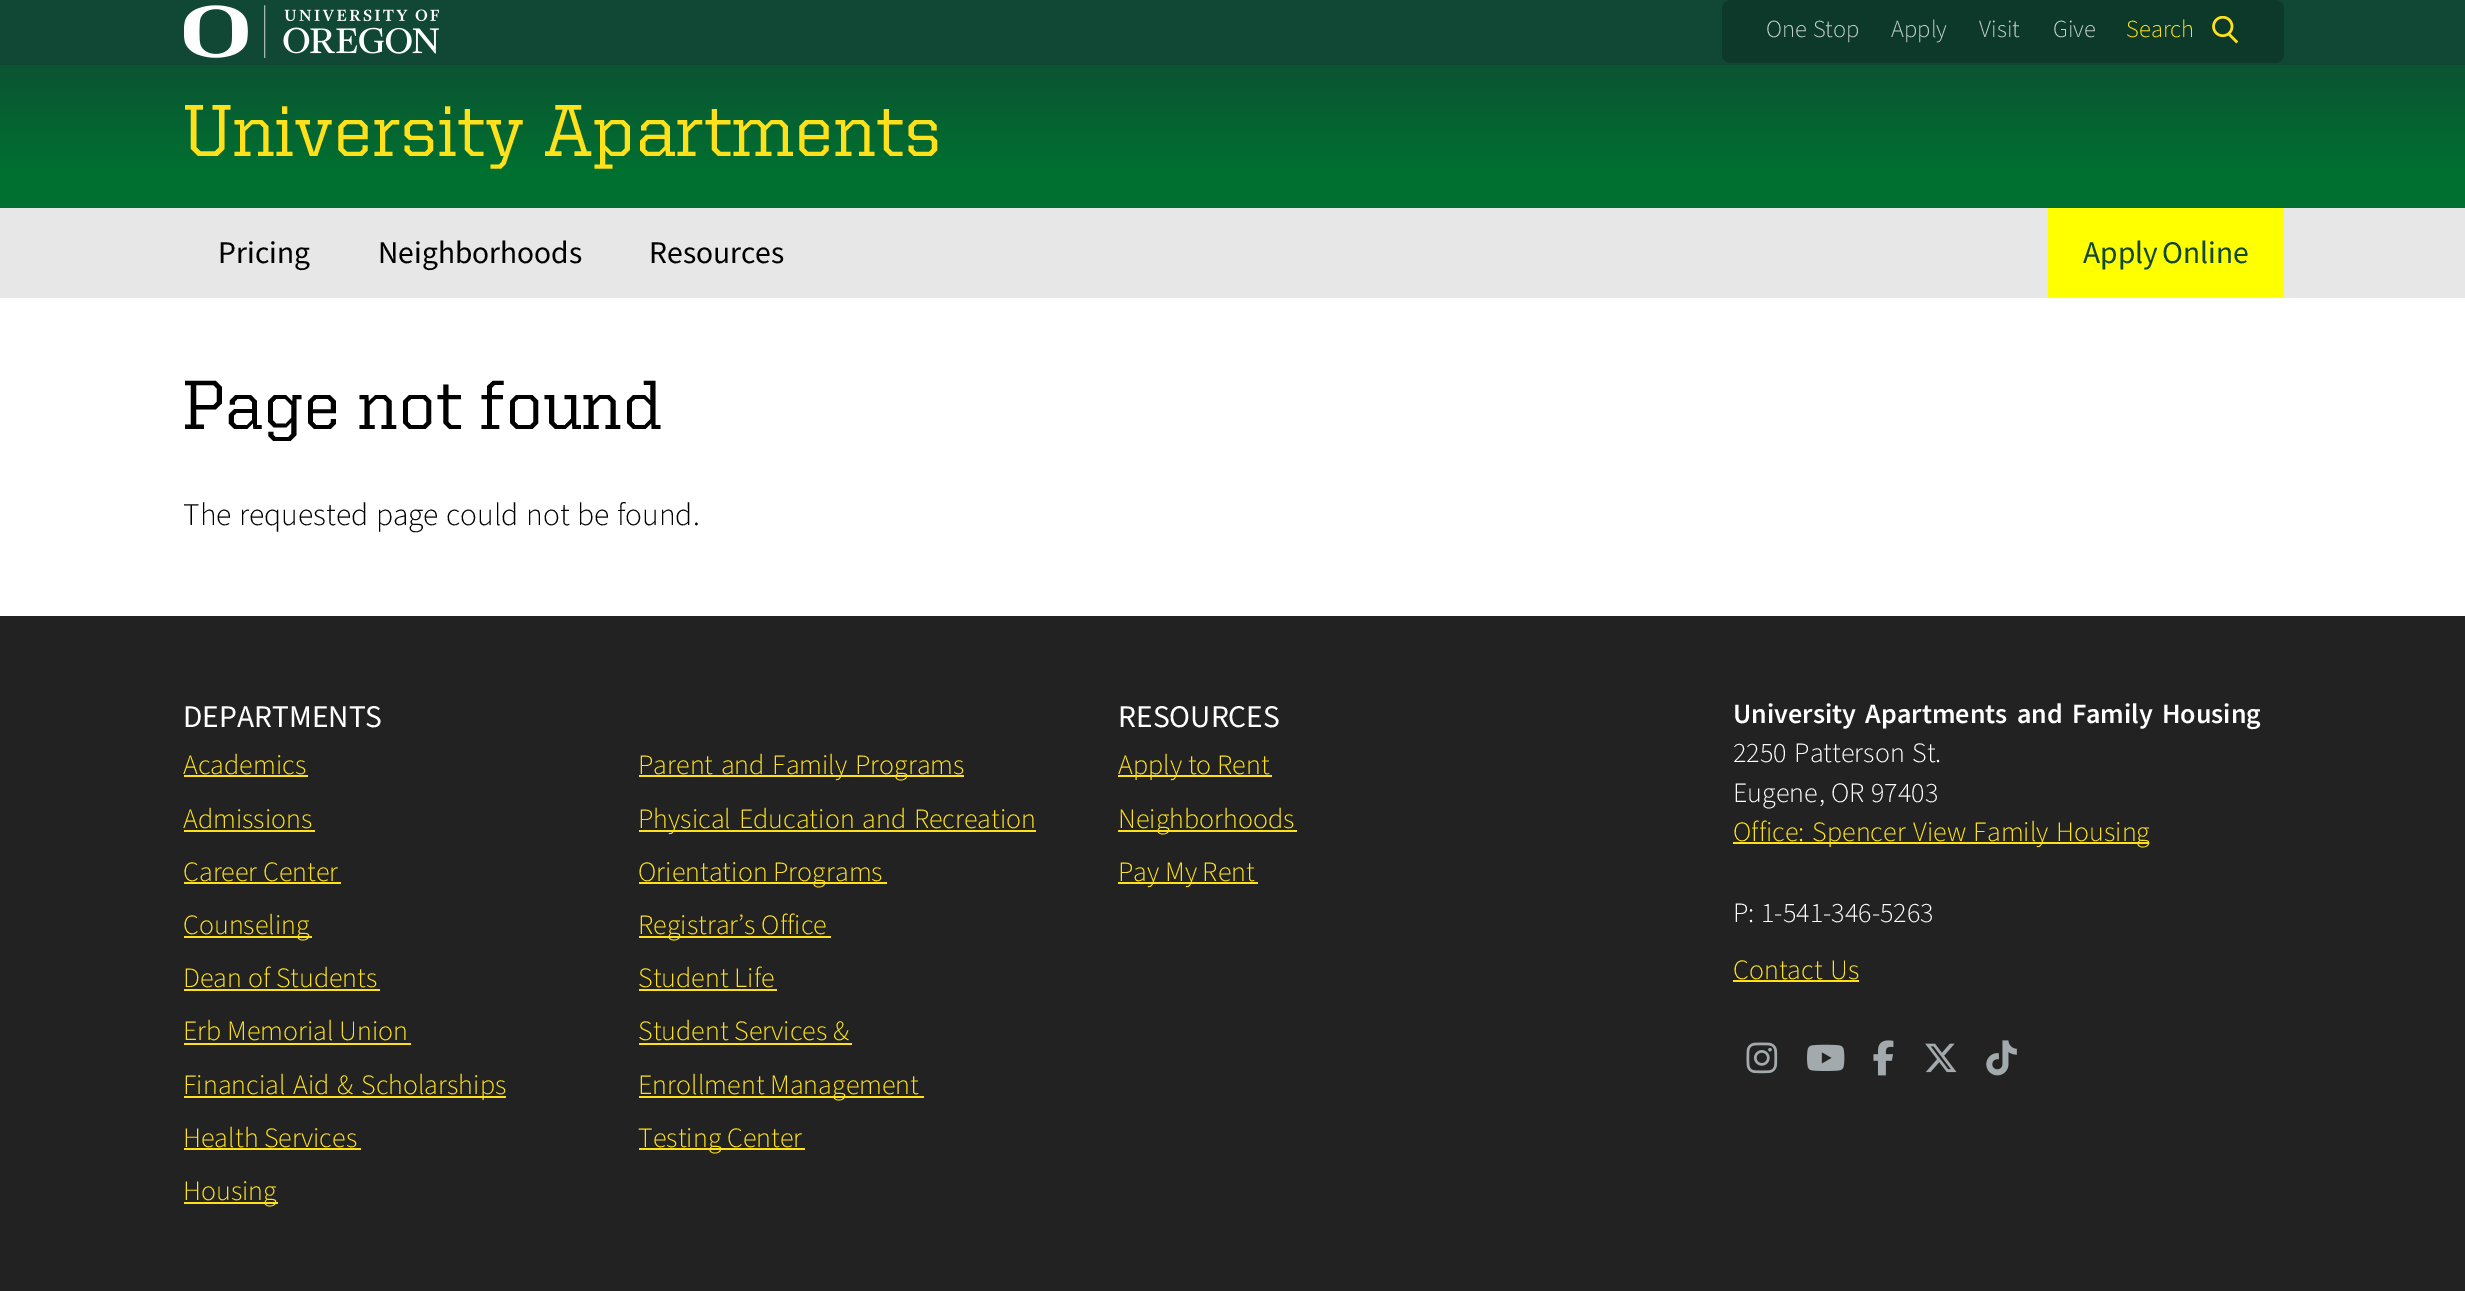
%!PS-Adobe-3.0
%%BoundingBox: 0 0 2465 1291
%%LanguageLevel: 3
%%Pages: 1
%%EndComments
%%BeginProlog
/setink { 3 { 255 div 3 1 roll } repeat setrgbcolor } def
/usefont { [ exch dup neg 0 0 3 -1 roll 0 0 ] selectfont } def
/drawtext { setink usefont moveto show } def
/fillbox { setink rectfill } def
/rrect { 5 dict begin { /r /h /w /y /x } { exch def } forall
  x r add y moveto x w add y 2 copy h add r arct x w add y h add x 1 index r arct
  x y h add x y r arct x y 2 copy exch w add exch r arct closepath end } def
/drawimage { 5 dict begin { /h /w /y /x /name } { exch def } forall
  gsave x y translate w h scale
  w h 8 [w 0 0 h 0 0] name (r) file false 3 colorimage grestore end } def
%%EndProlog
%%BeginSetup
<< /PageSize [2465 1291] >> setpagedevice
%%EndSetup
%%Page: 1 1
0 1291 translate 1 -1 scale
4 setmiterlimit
0 0 2465 1291 16 71 53 fillbox
(assets/img1.rgb) 184 5 255 53 drawimage
13 57 42 setink
1722 0 562 63 9 rrect fill
/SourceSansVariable-Light 24.5 usefont
195 206 202 setink
1766 37 moveto 1 0 32 (One Stop) widthshow
(Apply) 1891 37 /SourceSansVariable-Light 24.5 195 206 202 drawtext
(Visit) 1979 37 /SourceSansVariable-Light 24.5 195 206 202 drawtext
(Give) 2053 37 /SourceSansVariable-Light 24.5 195 206 202 drawtext
(assets/img2.rgb) 2212 16 26 28 drawimage
(Search) 2126 37 /SourceSansVariable-Light 24.5 254 225 26 drawtext
0 298 2465 318 255 255 255 fillbox
gsave 0 65 moveto 2465 65 lineto 2465 208 lineto 0 208 lineto closepath clip newpath
<< /ShadingType 2 /ColorSpace /DeviceRGB /Coords [1233 208 1233 15] /Extend [true true] /Function << /FunctionType 3 /Domain [0 1] /Functions [<< /FunctionType 2 /Domain [0 1] /C0 [0 0.439 0.188] /C1 [0 0.439 0.188] /N 1 >> << /FunctionType 2 /Domain [0 1] /C0 [0 0.439 0.188] /C1 [0.063 0.278 0.208] /N 1 >>] /Bounds [0.19] /Encode [0 1 0 1] >> >> shfill grestore
(University Apartments) 183 156 /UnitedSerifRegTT-Medium 74 254 225 26 drawtext
0 208 2465 90 231 231 231 fillbox
(Pricing) 218 263 /SourceSansVariable-Regular 31.5 0 0 0 drawtext
(Neighborhoods) 378 263 /SourceSansVariable-Regular 31.5 0 0 0 drawtext
(Resources) 649 263 /SourceSansVariable-Regular 31.5 0 0 0 drawtext
2048 208 236 90 255 255 0 fillbox
18 71 52 setink
2083 263 moveto -2 0 32 (Apply Online) widthshow
(Page not found) 183 429 /UnitedSerifRegTT-Medium 70 0 0 0 drawtext
/SourceSansVariable-Light 31.5 usefont
183 525 moveto 1.25 0 32 (The requested page could not be found.) widthshow
0 616 2465 675 34 34 34 fillbox
(DEPARTMENTS) 183 727 /SourceSansVariable-Regular 31.5 255 255 255 drawtext
(Academics) 183 774 /SourceSansVariable-Light 28 254 225 26 drawtext
184 775 124 2 254 225 26 fillbox
639 775 325 2 254 225 26 fillbox
638 774 moveto 2 0 32 (Parent and Family Programs) widthshow
(Admissions) 183 828 /SourceSansVariable-Light 28 254 225 26 drawtext
184 830 131 2 254 225 26 fillbox
639 830 397 2 254 225 26 fillbox
638 828 moveto 2 0 32 (Physical Education and Recreation) widthshow
(Career Center) 183 881 /SourceSansVariable-Light 28 254 225 26 drawtext
184 882 157 2 254 225 26 fillbox
639 882 248 2 254 225 26 fillbox
(Orientation Programs) 638 881 /SourceSansVariable-Light 28 254 225 26 drawtext
184 936 128 2 254 225 26 fillbox
(Counseling) 183 934 /SourceSansVariable-Light 28 254 225 26 drawtext
639 936 192 2 254 225 26 fillbox
(Registrar’s Office) 638 934 /SourceSansVariable-Light 28 254 225 26 drawtext
(Dean of Students) 183 987 /SourceSansVariable-Light 28 254 225 26 drawtext
184 989 196 2 254 225 26 fillbox
(Student Life) 638 987 /SourceSansVariable-Light 28 254 225 26 drawtext
639 989 138 2 254 225 26 fillbox
(Erb Memorial Union) 183 1040 /SourceSansVariable-Light 28 254 225 26 drawtext
184 1043 227 2 254 225 26 fillbox
(Student Services &) 638 1040 /SourceSansVariable-Light 28 254 225 26 drawtext
639 1043 213 2 254 225 26 fillbox
639 1096 285 2 254 225 26 fillbox
(Enrollment Management) 638 1094 /SourceSansVariable-Light 28 254 225 26 drawtext
184 1096 322 2 254 225 26 fillbox
183 1094 moveto 2 0 32 (Financial Aid & Scholarships) widthshow
(Health Services) 183 1147 /SourceSansVariable-Light 28 254 225 26 drawtext
184 1148 177 2 254 225 26 fillbox
639 1148 166 2 254 225 26 fillbox
(Testing Center) 638 1147 /SourceSansVariable-Light 28 254 225 26 drawtext
184 1202 94 2 254 225 26 fillbox
(Housing) 183 1200 /SourceSansVariable-Light 28 254 225 26 drawtext
(RESOURCES) 1118 727 /SourceSansVariable-Regular 31.5 255 255 255 drawtext
1118 775 154 2 254 225 26 fillbox
(Apply to Rent) 1118 774 /SourceSansVariable-Light 28 254 225 26 drawtext
1118 830 179 2 254 225 26 fillbox
(Neighborhoods) 1118 828 /SourceSansVariable-Light 28 254 225 26 drawtext
1118 882 140 2 254 225 26 fillbox
(Pay My Rent) 1118 881 /SourceSansVariable-Light 28 254 225 26 drawtext
/SourceSansVariable-SemiBold 28 usefont
255 255 255 setink
1733 723 moveto 3.5 0 32 (University Apartments and Family Housing) widthshow
/SourceSansVariable-Light 28 usefont
1733 762 moveto 2 0 32 (2250 Patterson St.) widthshow
(Eugene) 1733 802 /SourceSansVariable-Light 28 255 255 255 drawtext
(,) 1819 802 /SourceSansVariable-Light 28 255 255 255 drawtext
(OR) 1831 802 /SourceSansVariable-Light 28 255 255 255 drawtext
(97403) 1871 802 /SourceSansVariable-Light 28 255 255 255 drawtext
1733 842 416 2 254 225 26 fillbox
1733 841 moveto 2 0 32 (Office: Spencer View Family Housing) widthshow
(P:) 1733 922 /SourceSansVariable-Light 28 255 255 255 drawtext
(1-541-346-5263) 1761 922 /SourceSansVariable-Light 28 255 255 255 drawtext
254 225 26 setink
1733 979 moveto 2 0 32 (Contact Us) widthshow
1733 980 126 2 254 225 26 fillbox
(assets/img3.rgb) 1746 1042 32 32 drawimage
(assets/img4.rgb) 1807 1044 38 27 drawimage
(assets/img5.rgb) 1873 1040 21 36 drawimage
(assets/img6.rgb) 1925 1043 32 30 drawimage
(assets/img7.rgb) 1986 1040 31 36 drawimage
showpage
%%EOF
